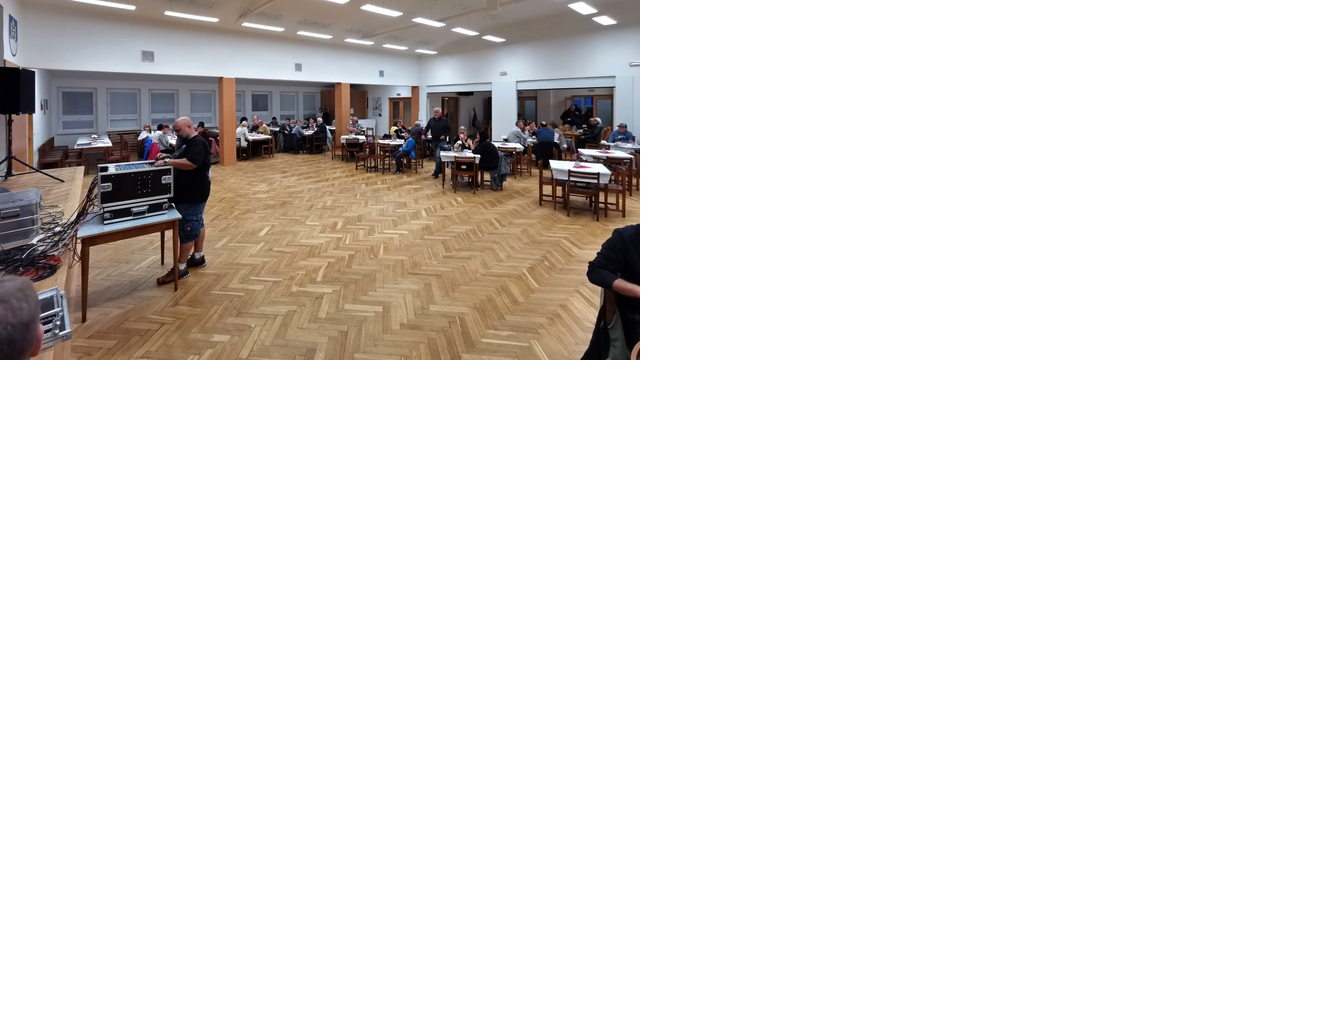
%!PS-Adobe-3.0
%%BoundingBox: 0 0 1341 1029
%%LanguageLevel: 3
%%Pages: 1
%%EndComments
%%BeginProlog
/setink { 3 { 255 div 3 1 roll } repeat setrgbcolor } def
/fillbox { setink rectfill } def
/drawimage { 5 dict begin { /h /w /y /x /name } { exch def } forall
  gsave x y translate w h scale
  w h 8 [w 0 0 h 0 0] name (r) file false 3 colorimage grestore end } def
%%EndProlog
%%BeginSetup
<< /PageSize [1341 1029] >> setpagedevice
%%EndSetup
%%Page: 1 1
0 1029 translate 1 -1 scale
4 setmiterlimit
0 0 1341 1029 255 255 255 fillbox
(assets/img1.rgb) 0 0 640 360 drawimage
showpage
%%EOF
